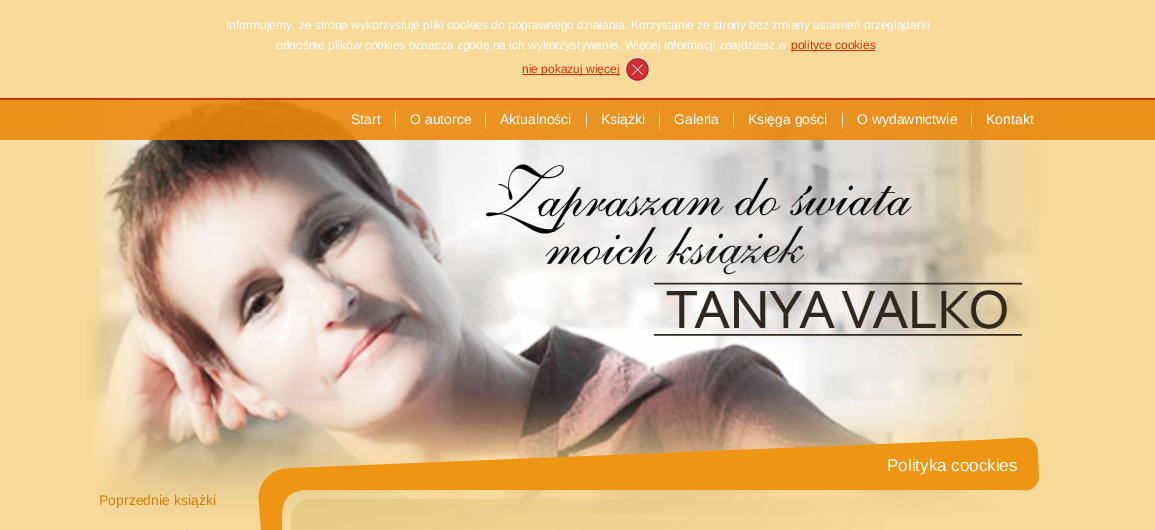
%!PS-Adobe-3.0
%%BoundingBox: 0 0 1155 530
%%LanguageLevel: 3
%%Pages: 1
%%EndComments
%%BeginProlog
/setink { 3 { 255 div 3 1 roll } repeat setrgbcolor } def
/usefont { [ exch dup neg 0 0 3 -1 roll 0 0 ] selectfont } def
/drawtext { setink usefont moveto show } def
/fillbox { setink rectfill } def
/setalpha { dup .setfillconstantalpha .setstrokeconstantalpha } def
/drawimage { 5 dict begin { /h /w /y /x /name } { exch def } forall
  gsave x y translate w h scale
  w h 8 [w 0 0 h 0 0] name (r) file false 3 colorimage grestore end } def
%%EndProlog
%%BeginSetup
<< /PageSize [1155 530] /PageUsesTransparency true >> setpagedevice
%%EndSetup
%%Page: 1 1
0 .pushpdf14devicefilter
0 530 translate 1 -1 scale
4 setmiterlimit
0 0 1155 530 247 217 153 fillbox
0 98 1155 2 204 51 0 fillbox
(Informujemy, że strona wykorzystuje pliki cookies do poprawnego działania. Korzystanie ze strony bez zmiany ustawień przeglądarki) 226 29 /LiberationSans-Regular 12 255 255 255 drawtext
(odnośnie plików cookies oznacza zgodę na ich wykorzystywanie. Więcej informacji znajdziesz w) 276 49 /LiberationSans-Regular 12 255 255 255 drawtext
791 50 84 1 204 51 0 fillbox
(polityce cookies) 791 49 /LiberationSans-Regular 12 204 51 0 drawtext
(.) 875 49 /LiberationSans-Regular 12 255 255 255 drawtext
522 74 98 1 204 51 0 fillbox
(nie pokazuj więcej) 522 73 /LiberationSans-Regular 12 204 51 0 drawtext
(assets/img1.rgb) 625 57 25 24 drawimage
(assets/img2.rgb) 86 100 968 415 drawimage
0.9 setalpha
0 100 1155 40 233 137 12 fillbox
1 setalpha
(Start) 351 124 /LiberationSans-Regular 14 255 255 255 drawtext
(assets/img3.rgb) 395 109 1 22 drawimage
(O autorce) 410 124 /LiberationSans-Regular 14 255 255 255 drawtext
(assets/img4.rgb) 485 109 1 22 drawimage
(Aktualności) 500 124 /LiberationSans-Regular 14 255 255 255 drawtext
(assets/img5.rgb) 586 109 1 22 drawimage
(Książki) 601 124 /LiberationSans-Regular 14 255 255 255 drawtext
(assets/img6.rgb) 659 109 1 22 drawimage
(Galeria) 674 124 /LiberationSans-Regular 14 255 255 255 drawtext
(assets/img7.rgb) 733 109 1 22 drawimage
(Księga gości) 748 124 /LiberationSans-Regular 14 255 255 255 drawtext
(assets/img8.rgb) 842 109 1 22 drawimage
(O wydawnictwie) 857 124 /LiberationSans-Regular 14 255 255 255 drawtext
(assets/img9.rgb) 971 109 1 22 drawimage
(Kontakt) 986 124 /LiberationSans-Regular 14 255 255 255 drawtext
(assets/img10.rgb) 258 437 781 93 drawimage
(Polityka coockies) 887 471 /LiberationSans-Regular 17 255 255 255 drawtext
(Poprzednie książki) 99 505 /LiberationSans-Regular 14 211 127 0 drawtext
(assets/img11.rgb) 186 529 6 1 drawimage
.poppdf14devicefilter showpage
%%EOF
